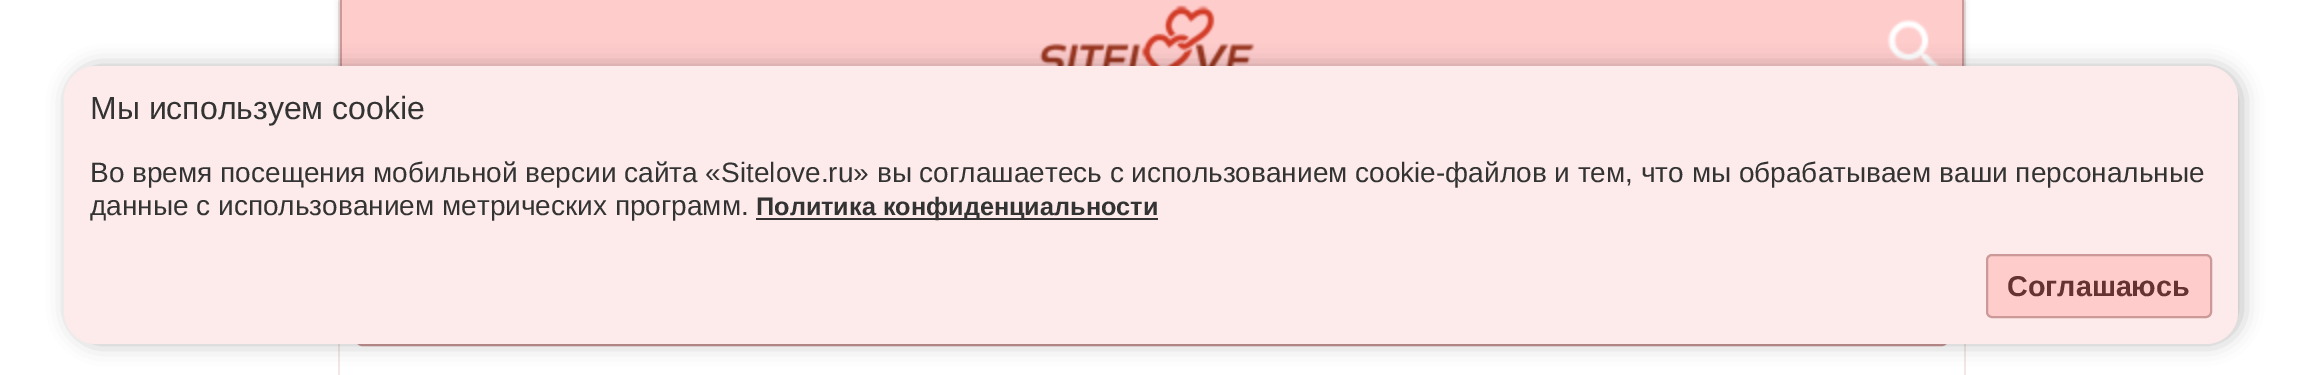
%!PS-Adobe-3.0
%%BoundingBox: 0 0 2301 375
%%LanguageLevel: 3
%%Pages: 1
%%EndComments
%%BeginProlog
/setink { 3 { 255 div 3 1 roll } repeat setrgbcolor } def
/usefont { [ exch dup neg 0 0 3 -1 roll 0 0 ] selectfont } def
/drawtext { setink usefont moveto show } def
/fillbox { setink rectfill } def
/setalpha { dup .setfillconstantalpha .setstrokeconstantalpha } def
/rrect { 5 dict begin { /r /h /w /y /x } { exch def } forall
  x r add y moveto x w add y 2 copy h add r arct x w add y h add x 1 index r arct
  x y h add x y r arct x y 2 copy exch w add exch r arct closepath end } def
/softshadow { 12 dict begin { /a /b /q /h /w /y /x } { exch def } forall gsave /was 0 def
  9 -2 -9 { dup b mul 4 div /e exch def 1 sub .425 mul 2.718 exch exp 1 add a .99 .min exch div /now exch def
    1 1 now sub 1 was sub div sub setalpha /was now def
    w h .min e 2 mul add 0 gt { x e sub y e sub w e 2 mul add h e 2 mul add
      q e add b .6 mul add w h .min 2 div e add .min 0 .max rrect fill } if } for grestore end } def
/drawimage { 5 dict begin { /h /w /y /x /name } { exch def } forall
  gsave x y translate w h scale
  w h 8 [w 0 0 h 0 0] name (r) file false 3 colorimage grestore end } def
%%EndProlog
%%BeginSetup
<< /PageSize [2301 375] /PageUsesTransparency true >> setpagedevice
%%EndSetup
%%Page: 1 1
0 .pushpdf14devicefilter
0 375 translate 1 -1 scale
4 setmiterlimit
0 0 2301 375 255 255 255 fillbox
1964 0 2 375 242 230 230 fillbox
338 0 2 375 242 230 230 fillbox
0 0 0 setink
340 2 1624 92 0 3 0.2 softshadow
342 0 1620 66 255 204 204 fillbox
1962 0 2 66 204 153 153 fillbox
340 0 2 66 204 153 153 fillbox
(assets/img1.rgb) 1039 5 216 61 drawimage
(assets/img2.rgb) 1887 19 54 47 drawimage
2 setlinewidth
357 273 1590 72 5 rrect stroke
0 0 0 setink
68 66 2174 278 32 10 0.25 softshadow
253 234 234 setink
64 66 2174 278 32 rrect fill
(Мы используем сookie) 90 119 /LiberationSans-Regular 32 51 51 51 drawtext
(Во время посещения мобильной версии сайта «Sitelove.ru» вы соглашаетесь с использованием cookie-файлов и тем, что мы обрабатываем ваши персональные) 90 182 /LiberationSans-Regular 28 51 51 51 drawtext
(данные с использованием метрических программ.) 90 215 /LiberationSans-Regular 28 51 51 51 drawtext
756 218 402 2 51 51 51 fillbox
(Политика конфиденциальности) 756 215 /LiberationSans-Bold 25.25 51 51 51 drawtext
255 204 204 setink
1987 255 224 62 5 rrect gsave fill grestore
204 153 153 setink
stroke
(Соглашаюсь) 2007 296 /LiberationSans-Bold 28.75 102 51 51 drawtext
.poppdf14devicefilter showpage
%%EOF
